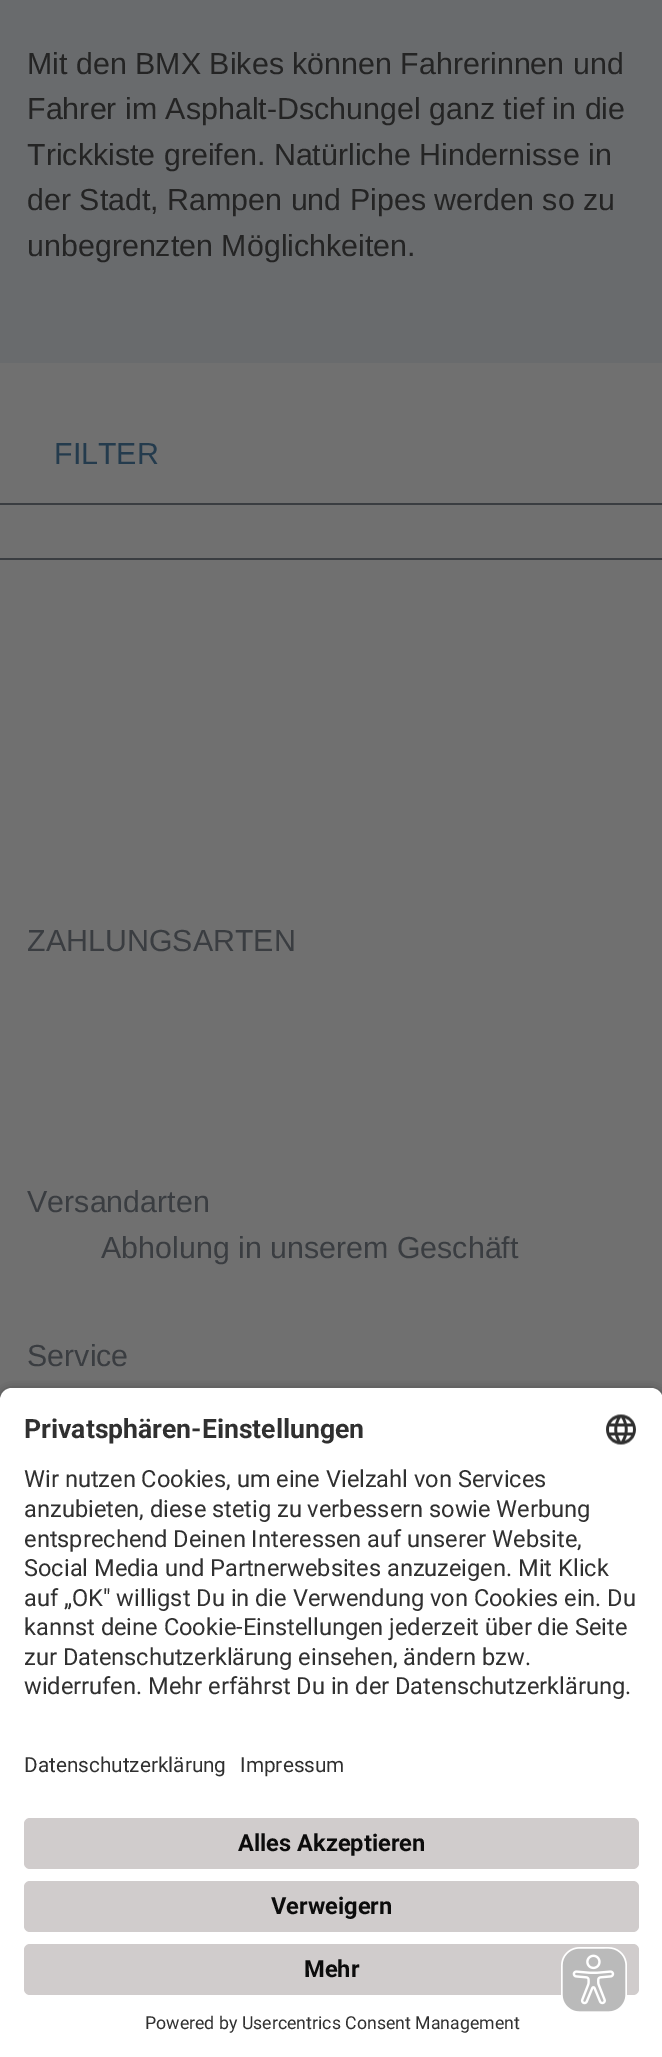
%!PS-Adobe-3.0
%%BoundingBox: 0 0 662 2057
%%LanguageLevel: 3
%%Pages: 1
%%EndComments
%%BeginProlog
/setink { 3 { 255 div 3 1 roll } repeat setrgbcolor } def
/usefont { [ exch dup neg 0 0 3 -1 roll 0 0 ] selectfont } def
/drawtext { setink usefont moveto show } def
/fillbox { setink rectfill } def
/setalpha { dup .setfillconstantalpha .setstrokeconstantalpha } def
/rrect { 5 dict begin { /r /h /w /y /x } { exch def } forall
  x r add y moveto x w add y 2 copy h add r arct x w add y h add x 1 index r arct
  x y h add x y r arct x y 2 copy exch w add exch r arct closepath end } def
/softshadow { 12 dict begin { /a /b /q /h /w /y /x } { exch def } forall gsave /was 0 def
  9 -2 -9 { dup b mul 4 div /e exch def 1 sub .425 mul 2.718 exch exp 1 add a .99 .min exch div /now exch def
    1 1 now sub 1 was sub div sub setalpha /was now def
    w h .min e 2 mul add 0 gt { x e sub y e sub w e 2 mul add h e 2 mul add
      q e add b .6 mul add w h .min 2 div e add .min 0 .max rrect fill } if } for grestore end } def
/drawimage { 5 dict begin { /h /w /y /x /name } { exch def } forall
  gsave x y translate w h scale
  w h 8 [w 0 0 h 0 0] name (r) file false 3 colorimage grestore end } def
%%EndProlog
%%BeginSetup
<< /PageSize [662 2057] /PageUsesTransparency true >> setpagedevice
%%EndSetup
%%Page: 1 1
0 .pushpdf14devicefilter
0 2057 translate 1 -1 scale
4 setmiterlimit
0 0 662 2057 112 112 112 fillbox
0 0 662 363 105 107 109 fillbox
(Mit den BMX Bikes können Fahrerinnen und) 27 74 /LiberationSans-Regular 30.4 36 36 36 drawtext
(Fahrer im Asphalt-Dschungel ganz tief in die) 27 119 /LiberationSans-Regular 30.4 36 36 36 drawtext
(Trickkiste greifen. Natürliche Hindernisse in) 27 165 /LiberationSans-Regular 30.4 36 36 36 drawtext
(der Stadt, Rampen und Pipes werden so zu) 27 210 /LiberationSans-Regular 30.4 36 36 36 drawtext
(unbegrenzten Möglichkeiten.) 27 256 /LiberationSans-Regular 30.4 36 36 36 drawtext
0 503 662 2 58 61 65 fillbox
(FILTER) 54 464 /LiberationSans-Regular 30.4 36 59 77 drawtext
0 558 662 2 58 61 65 fillbox
(ZAHLUNGSARTEN) 27 951 /LiberationSans-Regular 30.4 58 61 65 drawtext
(Versandarten) 27 1212 /LiberationSans-Regular 30.4 58 61 65 drawtext
(Abholung in unserem Geschäft) 101 1258 /LiberationSans-Regular 30.4 58 61 65 drawtext
(Service) 27 1366 /LiberationSans-Regular 30.4 58 61 65 drawtext
0 0 0 setink
0 1392 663 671 12 5 0.8 softshadow
255 255 255 setink
12 1388 moveto 651 1388 lineto 657.5 1388 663 1393.5 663 1400 curveto 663 1731 lineto 0 1731 lineto 0 1400 lineto 0 1393.5 5.5 1388 12 1388 curveto closepath fill
(Privatsphären-Einstellungen) 24 1438 /Roboto-Bold 26.6 48 48 48 drawtext
(assets/img1.rgb) 606 1414 30 31 drawimage
(Wir nutzen Cookies, um eine Vielzahl von Services) 24 1487 /Roboto-Regular 23.6 48 48 48 drawtext
(anzubieten, diese stetig zu verbessern sowie Werbung) 24 1517 /Roboto-Regular 23.6 48 48 48 drawtext
(entsprechend Deinen Interessen auf unserer Website,) 24 1547 /Roboto-Regular 23.6 48 48 48 drawtext
(Social Media und Partnerwebsites anzuzeigen. Mit Klick) 24 1576 /Roboto-Regular 23.6 48 48 48 drawtext
(auf „OK" willigst Du in die Verwendung von Cookies ein. Du) 24 1606 /Roboto-Regular 23.6 48 48 48 drawtext
(kannst deine Cookie-Einstellungen jederzeit über die Seite) 24 1635 /Roboto-Regular 23.6 48 48 48 drawtext
(zur Datenschutzerklärung einsehen, ändern bzw.) 24 1665 /Roboto-Regular 23.6 48 48 48 drawtext
(widerrufen. Mehr erfährst Du in der Datenschutzerklärung.) 24 1694 /Roboto-Regular 23.6 48 48 48 drawtext
0 1731 662 326 255 255 255 fillbox
(Datenschutzerklärung) 24 1772 /Roboto-Regular 20.75 48 48 48 drawtext
(Impressum) 240 1772 /Roboto-Regular 20.75 48 48 48 drawtext
208 204 204 setink
24 1818 615 51 6 rrect fill
(Alles Akzeptieren) 238 1851 /Roboto-Bold 23.6 12 12 12 drawtext
208 204 204 setink
24 1881 615 51 6 rrect fill
(Verweigern) 271 1914 /Roboto-Bold 23.6 12 12 12 drawtext
208 204 204 setink
24 1944 615 51 6 rrect fill
(Mehr) 304 1977 /Roboto-Bold 23.6 12 12 12 drawtext
(Powered by Usercentrics Consent Management) 145 2029 /Roboto-Regular 17.75 48 48 48 drawtext
(assets/img2.rgb) 561 1947 66 65 drawimage
.poppdf14devicefilter showpage
%%EOF
